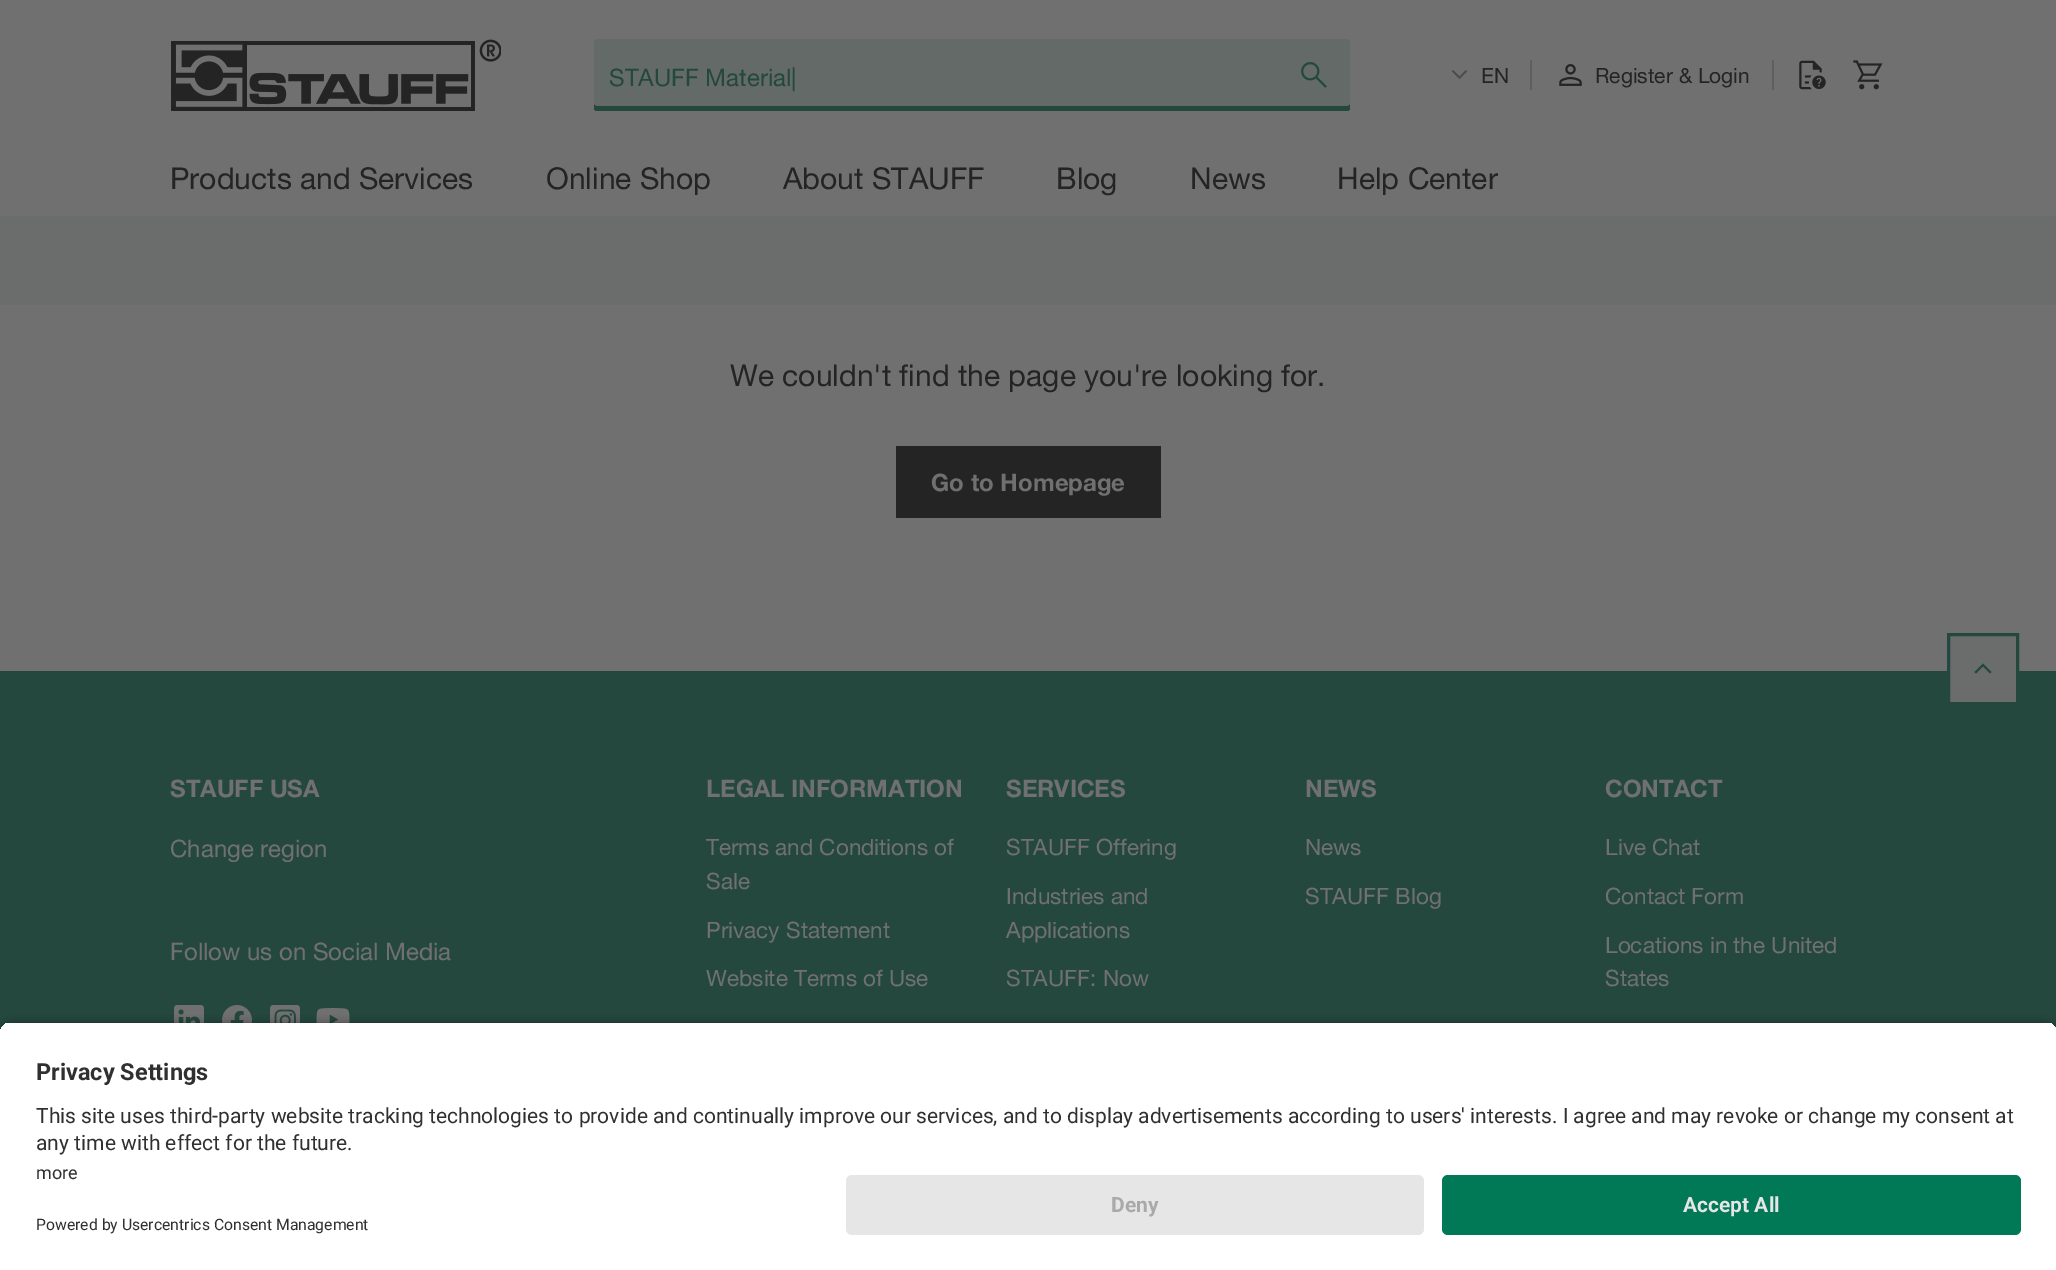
%!PS-Adobe-3.0
%%BoundingBox: 0 0 2056 1270
%%LanguageLevel: 3
%%Pages: 1
%%EndComments
%%BeginProlog
/setink { 3 { 255 div 3 1 roll } repeat setrgbcolor } def
/usefont { [ exch dup neg 0 0 3 -1 roll 0 0 ] selectfont } def
/drawtext { setink usefont moveto show } def
/fillbox { setink rectfill } def
/setalpha { dup .setfillconstantalpha .setstrokeconstantalpha } def
/rrect { 5 dict begin { /r /h /w /y /x } { exch def } forall
  x r add y moveto x w add y 2 copy h add r arct x w add y h add x 1 index r arct
  x y h add x y r arct x y 2 copy exch w add exch r arct closepath end } def
/softshadow { 12 dict begin { /a /b /q /h /w /y /x } { exch def } forall gsave /was 0 def
  9 -2 -9 { dup b mul 4 div /e exch def 1 sub .425 mul 2.718 exch exp 1 add a .99 .min exch div /now exch def
    1 1 now sub 1 was sub div sub setalpha /was now def
    w h .min e 2 mul add 0 gt { x e sub y e sub w e 2 mul add h e 2 mul add
      q e add b .6 mul add w h .min 2 div e add .min 0 .max rrect fill } if } for grestore end } def
/drawimage { 5 dict begin { /h /w /y /x /name } { exch def } forall
  gsave x y translate w h scale
  w h 8 [w 0 0 h 0 0] name (r) file false 3 colorimage grestore end } def
%%EndProlog
%%BeginSetup
<< /PageSize [2056 1270] /PageUsesTransparency true >> setpagedevice
%%EndSetup
%%Page: 1 1
0 .pushpdf14devicefilter
0 1270 translate 1 -1 scale
4 setmiterlimit
0 0 2056 1270 112 112 112 fillbox
(assets/img1.rgb) 171 39 330 72 drawimage
100 106 104 setink
594 39 756 72 3 rrect fill
36 72 62 setink
594 104 moveto 594 108 lineto 594 110 595 111 597 111 curveto 1347 111 lineto 1349 111 1350 110 1350 108 curveto 1350 104 lineto 1350 105 1349 106 1347 106 curveto 597 106 lineto 595 106 594 105 594 104 curveto closepath fill
(STAUFF Material|) 609 86 /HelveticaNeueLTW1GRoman-Regular 24 36 72 62 drawtext
(assets/img2.rgb) 1301 62 26 26 drawimage
(assets/img3.rgb) 1451 70 17 10 drawimage
(EN) 1481 83 /HelveticaNeueLTW1GRoman-Regular 21 36 36 36 drawtext
1530 60 2 30 95 95 95 fillbox
(assets/img4.rgb) 1559 64 23 22 drawimage
(Register & Login) 1595 83 /HelveticaNeueLTW1GRoman-Regular 21 36 36 36 drawtext
1772 60 2 30 95 95 95 fillbox
(assets/img5.rgb) 1799 60 27 30 drawimage
(assets/img6.rgb) 1853 60 30 30 drawimage
(Products and Services) 170 189 /HelveticaNeueLTW1GRoman-Regular 30 36 36 36 drawtext
(Online Shop) 546 189 /HelveticaNeueLTW1GRoman-Regular 30 36 36 36 drawtext
(About STAUFF) 783 189 /HelveticaNeueLTW1GRoman-Regular 30 36 36 36 drawtext
(Blog) 1056 189 /HelveticaNeueLTW1GRoman-Regular 30 36 36 36 drawtext
(News) 1190 189 /HelveticaNeueLTW1GRoman-Regular 30 36 36 36 drawtext
(Help Center) 1337 189 /HelveticaNeueLTW1GRoman-Regular 30 36 36 36 drawtext
0 216 2056 89 106 109 108 fillbox
(We couldn't find the page you're looking for.) 730 386 /HelveticaNeueLTW1GRoman-Regular 30 36 36 36 drawtext
896 446 265 72 36 36 36 fillbox
(Go to Homepage) 931 491 /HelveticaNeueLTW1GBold-Bold 24 112 112 112 drawtext
0 671 2056 363 36 72 62 fillbox
106 109 108 setink
1948.5 634.5 moveto 2017.5 634.5 lineto 2017.5 703.5 lineto 1948.5 703.5 lineto closepath gsave fill grestore
36 72 62 setink
3 setlinewidth
stroke
1976 673.5 moveto 1974.5 672 lineto 1983 663.5 lineto 1991.5 672 lineto 1990 673.5 lineto 1983 666.5 lineto closepath fill
(STAUFF USA) 170 797 /HelveticaNeueLTW1GBold-Bold 24 112 112 112 drawtext
(Change region) 170 857 /HelveticaNeueLTW1GRoman-Regular 24 112 112 112 drawtext
(Follow us on Social Media) 170 960 /HelveticaNeueLTW1GRoman-Regular 24 112 112 112 drawtext
(assets/img7.rgb) 174 1005 30 18 drawimage
(assets/img8.rgb) 222 1005 30 18 drawimage
(assets/img9.rgb) 270 1005 30 18 drawimage
(assets/img10.rgb) 316 1008 34 15 drawimage
(LEGAL INFORMATION) 706 797 /HelveticaNeueLTW1GBold-Bold 24 112 112 112 drawtext
(Terms and Conditions of) 706 855 /HelveticaNeueLTW1GRoman-Regular 22.5 112 112 112 drawtext
(Sale) 706 889 /HelveticaNeueLTW1GRoman-Regular 22.5 112 112 112 drawtext
(Privacy Statement) 706 938 /HelveticaNeueLTW1GRoman-Regular 22.5 112 112 112 drawtext
(Website Terms of Use) 706 986 /HelveticaNeueLTW1GRoman-Regular 22.5 112 112 112 drawtext
(SERVICES) 1006 797 /HelveticaNeueLTW1GBold-Bold 24 112 112 112 drawtext
(STAUFF Offering) 1006 855 /HelveticaNeueLTW1GRoman-Regular 22.5 112 112 112 drawtext
(Industries and) 1006 904 /HelveticaNeueLTW1GRoman-Regular 22.5 112 112 112 drawtext
(Applications) 1006 938 /HelveticaNeueLTW1GRoman-Regular 22.5 112 112 112 drawtext
(STAUFF: Now) 1006 986 /HelveticaNeueLTW1GRoman-Regular 22.5 112 112 112 drawtext
(NEWS) 1305 797 /HelveticaNeueLTW1GBold-Bold 24 112 112 112 drawtext
(News) 1305 855 /HelveticaNeueLTW1GRoman-Regular 22.5 112 112 112 drawtext
(STAUFF Blog) 1305 904 /HelveticaNeueLTW1GRoman-Regular 22.5 112 112 112 drawtext
(CONTACT) 1605 797 /HelveticaNeueLTW1GBold-Bold 24 112 112 112 drawtext
(Live Chat) 1605 855 /HelveticaNeueLTW1GRoman-Regular 22.5 112 112 112 drawtext
(Contact Form) 1605 904 /HelveticaNeueLTW1GRoman-Regular 22.5 112 112 112 drawtext
(Locations in the United) 1605 953 /HelveticaNeueLTW1GRoman-Regular 22.5 112 112 112 drawtext
(States) 1605 986 /HelveticaNeueLTW1GRoman-Regular 22.5 112 112 112 drawtext
0 0 0 setink
0 1026 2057 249 12 5 0.8 softshadow
gsave
12 1022 moveto 2045 1022 lineto 2051.5 1022 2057 1027.5 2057 1034 curveto 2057 1163 lineto 0 1163 lineto 0 1034 lineto 0 1027.5 5.5 1022 12 1022 curveto closepath clip newpath
0 1023 2056 140 255 255 255 fillbox
grestore
(Privacy Settings) 36 1080 /Roboto-Bold 23.5 48 48 48 drawtext
(This site uses third-party website tracking technologies to provide and continually improve our services, and to display advertisements according to users' interests. I agree and may revoke or change my consent at) 36 1123 /Roboto-Regular 21 48 48 48 drawtext
(any time with effect for the future.) 36 1150 /Roboto-Regular 21 48 48 48 drawtext
0 1163 2056 107 255 255 255 fillbox
(more) 36 1179 /Roboto-Regular 18 48 48 48 drawtext
(Powered by Usercentrics Consent Management) 36 1230 /Roboto-Regular 15.75 48 48 48 drawtext
230 230 230 setink
846 1175 578 60 6 rrect fill
(Deny) 1111 1212 /Roboto-Bold 21 169 169 169 drawtext
1 120 86 setink
1442 1175 579 60 6 rrect fill
(Accept All) 1683 1212 /Roboto-Bold 21 230 230 230 drawtext
.poppdf14devicefilter showpage
%%EOF
